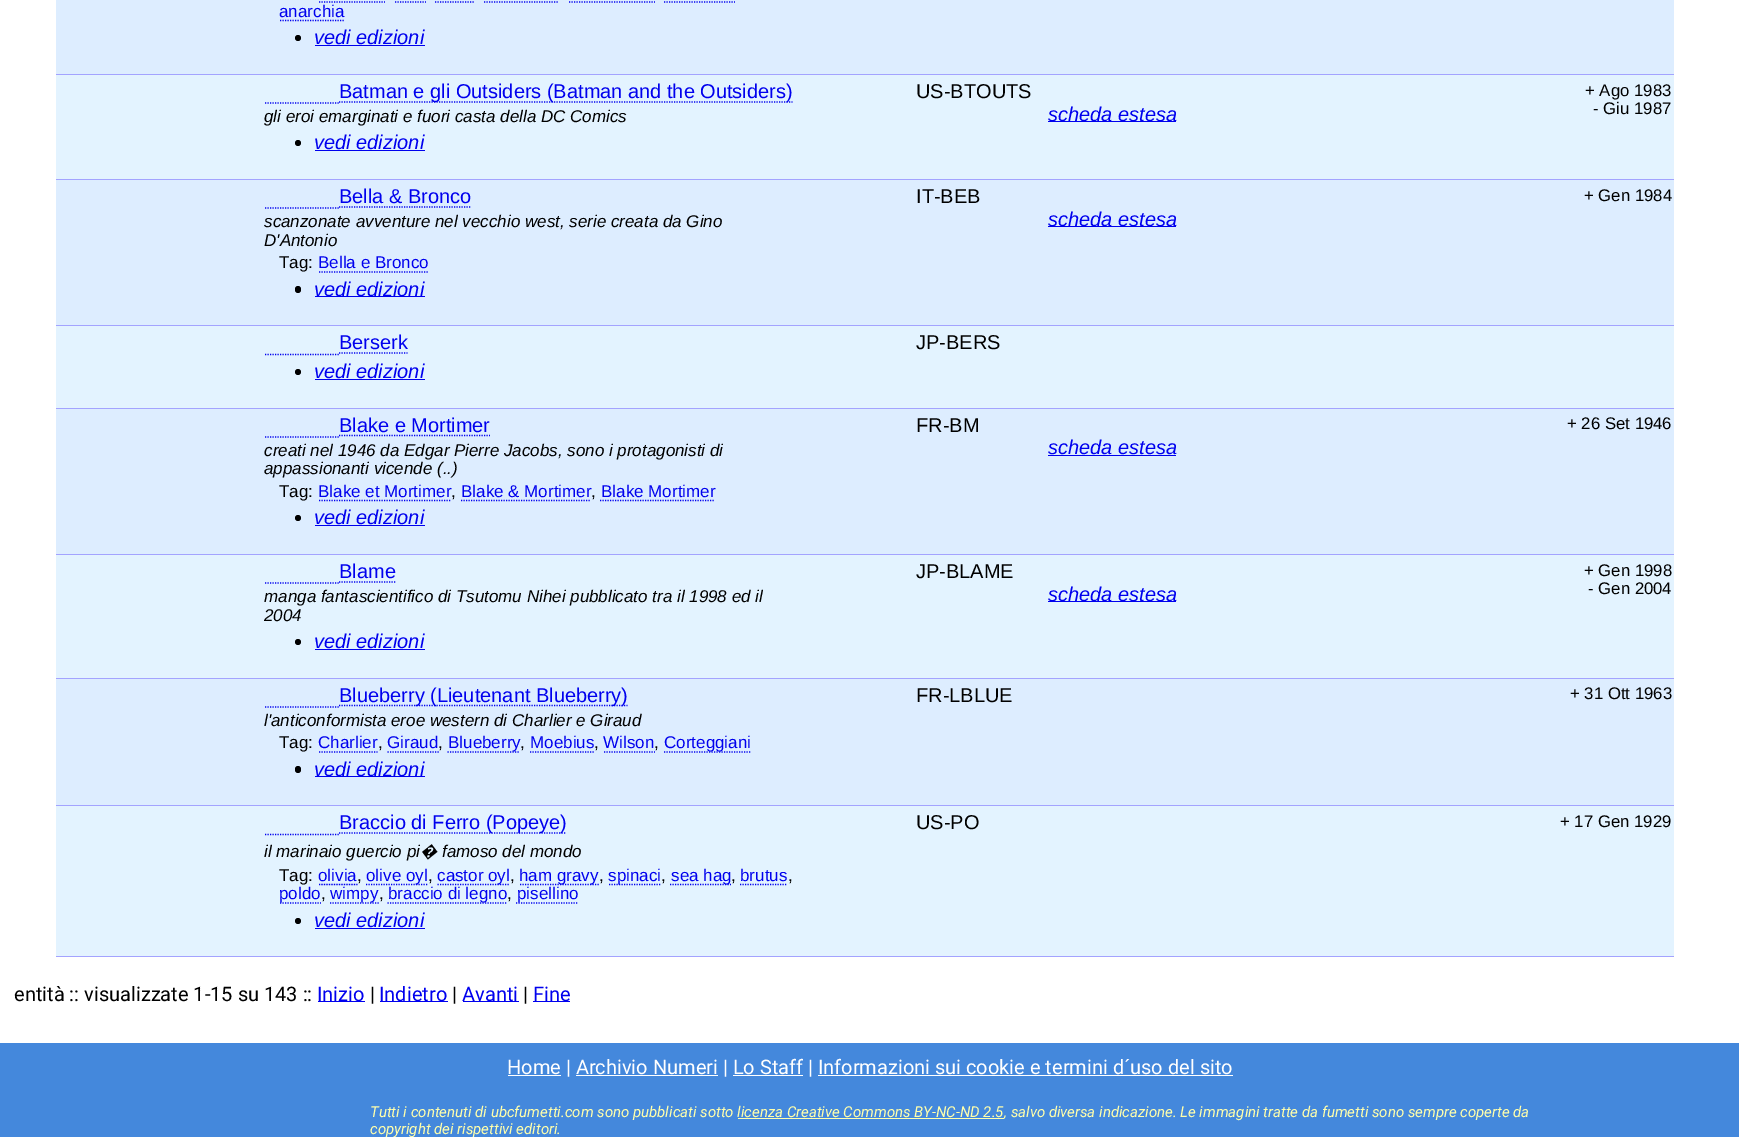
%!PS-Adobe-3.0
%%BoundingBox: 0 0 1739 1137
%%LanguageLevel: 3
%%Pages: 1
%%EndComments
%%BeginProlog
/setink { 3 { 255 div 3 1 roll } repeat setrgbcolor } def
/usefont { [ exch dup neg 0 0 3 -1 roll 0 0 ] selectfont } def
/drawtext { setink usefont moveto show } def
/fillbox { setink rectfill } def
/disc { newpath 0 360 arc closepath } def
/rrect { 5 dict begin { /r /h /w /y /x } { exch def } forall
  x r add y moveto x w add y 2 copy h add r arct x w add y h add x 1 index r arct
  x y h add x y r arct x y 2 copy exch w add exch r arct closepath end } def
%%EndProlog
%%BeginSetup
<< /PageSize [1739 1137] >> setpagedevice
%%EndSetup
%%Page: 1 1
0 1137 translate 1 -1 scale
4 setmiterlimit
0 0 1739 1137 255 255 255 fillbox
56 956 1618 1 163 163 255 fillbox
56 0 1618 74 221 237 255 fillbox
0 0 238 setink
1.2 setlinewidth
[1.25 1.25] 0 setdash
319 2 moveto 385 2 lineto stroke
395 2 moveto 426 2 lineto stroke
435 2 moveto 474 2 lineto stroke
484 2 moveto 559 2 lineto stroke
569 2 moveto 655 2 lineto stroke
664 2 moveto 735 2 lineto stroke
(anarchia) 279 17 /LiberationSans-Regular 17 0 0 238 drawtext
280 20.5 moveto 345 20.5 lineto stroke
0 0 0 setink
298 38 3 disc fill
(vedi edizioni) 314 44 /LiberationSans-Italic 20 0 0 238 drawtext
315 45 110 1 0 0 238 fillbox
56 75 1618 104 227 243 255 fillbox
56 74 1618 1 163 163 255 fillbox
0 0 238 setink
339 102 moveto 792.5 102 lineto stroke
(Batman e gli Outsiders \(Batman and the Outsiders\)) 339 98 /LiberationSans-Regular 20 0 0 238 drawtext
265 103 moveto 339 103 lineto stroke
(gli eroi emarginati e fuori casta della DC Comics) 264 122 /LiberationSans-Italic 17 0 0 0 drawtext
298 143 3 disc fill
(vedi edizioni) 314 149 /LiberationSans-Italic 20 0 0 238 drawtext
315 150 110 1 0 0 238 fillbox
(US-BTOUTS) 916 98 /LiberationSans-Regular 20 0 0 0 drawtext
1048 121 128 1 0 0 238 fillbox
(scheda estesa) 1048 121 /LiberationSans-Italic 20 0 0 238 drawtext
(+ Ago 1983) 1585 96 /LiberationSans-Regular 16.75 0 0 0 drawtext
(- Giu 1987) 1593 114 /LiberationSans-Regular 16.75 0 0 0 drawtext
56 180 1618 145 221 237 255 fillbox
56 179 1618 1 163 163 255 fillbox
(Bella & Bronco) 339 203 /LiberationSans-Regular 20 0 0 238 drawtext
265 208 moveto 339 208 lineto stroke
339 207 moveto 471 207 lineto stroke
(scanzonate avventure nel vecchio west, serie creata da Gino) 264 227 /LiberationSans-Italic 17 0 0 0 drawtext
(D'Antonio) 264 246 /LiberationSans-Italic 17 0 0 0 drawtext
(Tag:) 279 268 /LiberationSans-Regular 17 0 0 0 drawtext
(Bella e Bronco) 318 268 /LiberationSans-Regular 17 0 0 238 drawtext
319 272 moveto 429 272 lineto stroke
0 0 0 setink
295 286 6 7 3 rrect fill
315 296 110 1 0 0 238 fillbox
(vedi edizioni) 314 296 /LiberationSans-Italic 20 0 0 238 drawtext
(IT-BEB) 916 203 /LiberationSans-Regular 20 0 0 0 drawtext
1048 226 128 1 0 0 238 fillbox
(scheda estesa) 1048 226 /LiberationSans-Italic 20 0 0 238 drawtext
(+ Gen 1984) 1584 201 /LiberationSans-Regular 16.75 0 0 0 drawtext
56 326 1618 82 227 243 255 fillbox
56 325 1618 1 163 163 255 fillbox
(Berserk) 339 349 /LiberationSans-Regular 20 0 0 238 drawtext
265 354.5 moveto 339 354.5 lineto stroke
339 353 moveto 407.5 353 lineto stroke
0 0 0 setink
298 372 3 disc fill
(vedi edizioni) 314 378 /LiberationSans-Italic 20 0 0 238 drawtext
315 379 110 1 0 0 238 fillbox
(JP-BERS) 916 349 /LiberationSans-Regular 20 0 0 0 drawtext
56 409 1618 145 221 237 255 fillbox
56 408 1618 1 163 163 255 fillbox
(Blake e Mortimer) 339 432 /LiberationSans-Regular 20 0 0 238 drawtext
265 437 moveto 339 437 lineto stroke
339 435.5 moveto 490 435.5 lineto stroke
(creati nel 1946 da Edgar Pierre Jacobs, sono i protagonisti di) 264 456 /LiberationSans-Italic 17 0 0 0 drawtext
(appassionanti vicende \(..\)) 264 474 /LiberationSans-Italic 17 0 0 0 drawtext
(Tag:) 279 497 /LiberationSans-Regular 17 0 0 0 drawtext
(Blake et Mortimer) 318 497 /LiberationSans-Regular 17 0 0 238 drawtext
319 500.5 moveto 451 500.5 lineto stroke
(,) 451 497 /LiberationSans-Regular 17 0 0 0 drawtext
(Blake & Mortimer) 461 497 /LiberationSans-Regular 17 0 0 238 drawtext
461 500.5 moveto 591 500.5 lineto stroke
(,) 591 497 /LiberationSans-Regular 17 0 0 0 drawtext
(Blake Mortimer) 601 497 /LiberationSans-Regular 17 0 0 238 drawtext
600 500.5 moveto 715 500.5 lineto stroke
0 0 0 setink
298 518 3 disc fill
(vedi edizioni) 314 524 /LiberationSans-Italic 20 0 0 238 drawtext
315 525 110 1 0 0 238 fillbox
(FR-BM) 916 432 /LiberationSans-Regular 20 0 0 0 drawtext
(scheda estesa) 1048 454 /LiberationSans-Italic 20 0 0 238 drawtext
1048 455 128 1 0 0 238 fillbox
(+ 26 Set 1946) 1567 429 /LiberationSans-Regular 16.75 0 0 0 drawtext
56 555 1618 123 227 243 255 fillbox
56 554 1618 1 163 163 255 fillbox
(Blame) 339 578 /LiberationSans-Regular 20 0 0 238 drawtext
265 583 moveto 339 583 lineto stroke
339 582 moveto 396 582 lineto stroke
(manga fantascientifico di Tsutomu Nihei pubblicato tra il 1998 ed il) 264 602 /LiberationSans-Italic 17 0 0 0 drawtext
(2004) 264 621 /LiberationSans-Italic 17 0 0 0 drawtext
298 642 3 disc fill
(vedi edizioni) 314 648 /LiberationSans-Italic 20 0 0 238 drawtext
315 649 110 1 0 0 238 fillbox
(JP-BLAME) 916 578 /LiberationSans-Regular 20 0 0 0 drawtext
1048 601 128 1 0 0 238 fillbox
(scheda estesa) 1048 601 /LiberationSans-Italic 20 0 0 238 drawtext
(+ Gen 1998) 1584 576 /LiberationSans-Regular 16.75 0 0 0 drawtext
(- Gen 2004) 1588 594 /LiberationSans-Regular 16.75 0 0 0 drawtext
56 679 1618 126 221 237 255 fillbox
56 678 1618 1 163 163 255 fillbox
0 0 238 setink
339 705.5 moveto 627.5 705.5 lineto stroke
(Blueberry \(Lieutenant Blueberry\)) 339 702 /LiberationSans-Regular 20 0 0 238 drawtext
265 707 moveto 339 707 lineto stroke
(l'anticonformista eroe western di Charlier e Giraud) 264 726 /LiberationSans-Italic 17 0 0 0 drawtext
(Tag:) 279 748 /LiberationSans-Regular 17 0 0 0 drawtext
(Charlier) 318 748 /LiberationSans-Regular 17 0 0 238 drawtext
319 752 moveto 377.5 752 lineto stroke
(,) 378 748 /LiberationSans-Regular 17 0 0 0 drawtext
(Giraud) 387 748 /LiberationSans-Regular 17 0 0 238 drawtext
387.5 752 moveto 439 752 lineto stroke
(,) 438 748 /LiberationSans-Regular 17 0 0 0 drawtext
0 0 238 setink
447.5 752 moveto 520 752 lineto stroke
(Blueberry) 448 748 /LiberationSans-Regular 17 0 0 238 drawtext
(,) 520 748 /LiberationSans-Regular 17 0 0 0 drawtext
(Moebius) 530 748 /LiberationSans-Regular 17 0 0 238 drawtext
530 752 moveto 594 752 lineto stroke
(,) 594 748 /LiberationSans-Regular 17 0 0 0 drawtext
(Wilson) 603 748 /LiberationSans-Regular 17 0 0 238 drawtext
604 752 moveto 655 752 lineto stroke
(,) 654 748 /LiberationSans-Regular 17 0 0 0 drawtext
0 0 238 setink
664 752 moveto 751 752 lineto stroke
(Corteggiani) 664 748 /LiberationSans-Regular 17 0 0 238 drawtext
0 0 0 setink
295 766 6 7 3 rrect fill
315 776 110 1 0 0 238 fillbox
(vedi edizioni) 314 776 /LiberationSans-Italic 20 0 0 238 drawtext
(FR-LBLUE) 916 702 /LiberationSans-Regular 20 0 0 0 drawtext
(+ 31 Ott 1963) 1570 699 /LiberationSans-Regular 16.75 0 0 0 drawtext
56 806 1618 150 227 243 255 fillbox
56 805 1618 1 163 163 255 fillbox
0 0 238 setink
339 833 moveto 566 833 lineto stroke
(Braccio di Ferro \(Popeye\)) 339 829 /LiberationSans-Regular 20 0 0 238 drawtext
265 834.5 moveto 339 834.5 lineto stroke
(il marinaio guercio pi) 264 857 /LiberationSans-Italic 17 0 0 0 drawtext
(�) 420 857 /NotoSans-Italic 17 0 0 0 drawtext
(famoso del mondo) 442 857 /LiberationSans-Italic 17 0 0 0 drawtext
(Tag:) 279 881 /LiberationSans-Regular 17 0 0 0 drawtext
(olivia) 318 881 /LiberationSans-Regular 17 0 0 238 drawtext
319 884.5 moveto 357.5 884.5 lineto stroke
(,) 357 881 /LiberationSans-Regular 17 0 0 0 drawtext
0 0 238 setink
366 884.5 moveto 427.5 884.5 lineto stroke
(olive oyl) 366 881 /LiberationSans-Regular 17 0 0 238 drawtext
(,) 428 881 /LiberationSans-Regular 17 0 0 0 drawtext
0 0 238 setink
437.5 884.5 moveto 510 884.5 lineto stroke
(castor oyl) 437 881 /LiberationSans-Regular 17 0 0 238 drawtext
(,) 510 881 /LiberationSans-Regular 17 0 0 0 drawtext
0 0 238 setink
520 884.5 moveto 599 884.5 lineto stroke
(ham gravy) 519 881 /LiberationSans-Regular 17 0 0 238 drawtext
(,) 599 881 /LiberationSans-Regular 17 0 0 0 drawtext
0 0 238 setink
609 884.5 moveto 661 884.5 lineto stroke
(spinaci) 608 881 /LiberationSans-Regular 17 0 0 238 drawtext
(,) 661 881 /LiberationSans-Regular 17 0 0 0 drawtext
0 0 238 setink
670 884.5 moveto 731 884.5 lineto stroke
(sea hag) 671 881 /LiberationSans-Regular 17 0 0 238 drawtext
(,) 731 881 /LiberationSans-Regular 17 0 0 0 drawtext
(brutus) 740 881 /LiberationSans-Regular 17 0 0 238 drawtext
740 884.5 moveto 787.5 884.5 lineto stroke
(,) 788 881 /LiberationSans-Regular 17 0 0 0 drawtext
0 0 238 setink
280 903 moveto 321 903 lineto stroke
(poldo) 279 899 /LiberationSans-Regular 17 0 0 238 drawtext
(,) 321 899 /LiberationSans-Regular 17 0 0 0 drawtext
0 0 238 setink
330 903 moveto 379 903 lineto stroke
(wimpy) 330 899 /LiberationSans-Regular 17 0 0 238 drawtext
(,) 379 899 /LiberationSans-Regular 17 0 0 0 drawtext
0 0 238 setink
387.5 903 moveto 507.5 903 lineto stroke
(braccio di legno) 388 899 /LiberationSans-Regular 17 0 0 238 drawtext
(,) 507 899 /LiberationSans-Regular 17 0 0 0 drawtext
0 0 238 setink
516 903 moveto 577.5 903 lineto stroke
(pisellino) 517 899 /LiberationSans-Regular 17 0 0 238 drawtext
0 0 0 setink
298 921 3 disc fill
(vedi edizioni) 314 927 /LiberationSans-Italic 20 0 0 238 drawtext
315 928 110 1 0 0 238 fillbox
(US-PO) 916 829 /LiberationSans-Regular 20 0 0 0 drawtext
(+ 17 Gen 1929) 1560 827 /LiberationSans-Regular 16.75 0 0 0 drawtext
(entità :: visualizzate 1-15 su 143 ::) 14 1001 /Roboto-Regular 20 0 0 0 drawtext
318 1001 47 1 0 0 238 fillbox
(Inizio) 317 1001 /Roboto-Regular 20 0 0 238 drawtext
(|) 370 1001 /Roboto-Regular 20 0 0 0 drawtext
380 1001 68 1 0 0 238 fillbox
(Indietro) 379 1001 /Roboto-Regular 20 0 0 238 drawtext
(|) 452 1001 /Roboto-Regular 20 0 0 0 drawtext
463 1001 56 1 0 0 238 fillbox
(Avanti) 462 1001 /Roboto-Regular 20 0 0 238 drawtext
(|) 523 1001 /Roboto-Regular 20 0 0 0 drawtext
533 1001 37 1 0 0 238 fillbox
(Fine) 533 1001 /Roboto-Regular 20 0 0 238 drawtext
0 1043 1739 94 68 136 220 fillbox
508 1075 53 1 255 255 255 fillbox
(Home | Archivio Numeri | Lo Staff | Informazioni sui cookie e termini d´uso del sito) 507 1074 /Roboto-Regular 20 255 255 255 drawtext
576 1075 142 1 255 255 255 fillbox
733 1075 70 1 255 255 255 fillbox
818 1075 415 1 255 255 255 fillbox
(Tutti i contenuti di ubcfumetti.com sono pubblicati sotto licenza Creative Commons BY-NC-ND 2.5) 370 1117 /Roboto-Italic 15 255 255 172 drawtext
738 1118 266 1 255 255 172 fillbox
(, salvo diversa indicazione. Le immagini tratte da fumetti sono sempre coperte da) 1004 1117 /Roboto-Italic 15 255 255 172 drawtext
(copyright dei rispettivi editori.) 370 1134 /Roboto-Italic 15 255 255 172 drawtext
showpage
%%EOF
